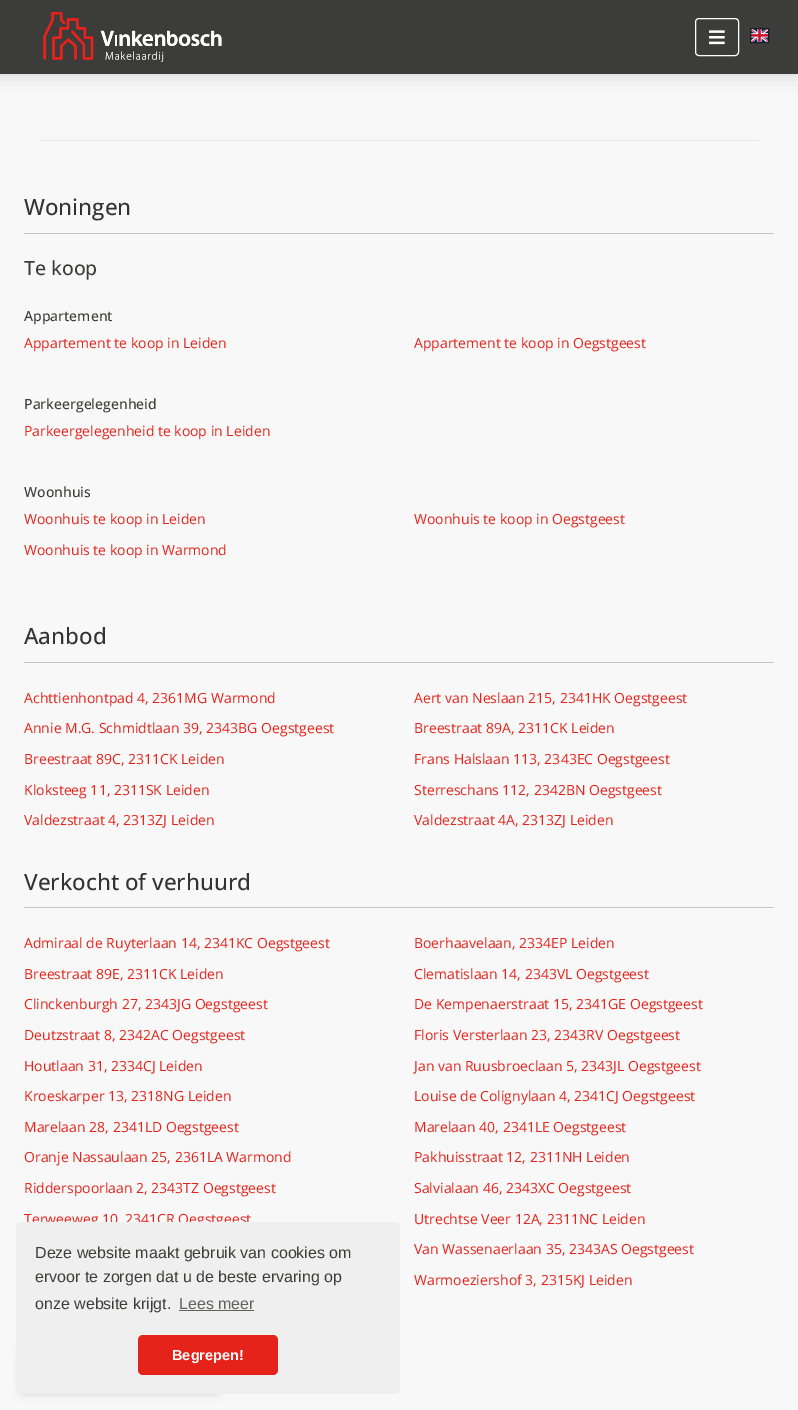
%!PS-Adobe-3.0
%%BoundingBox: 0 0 798 1410
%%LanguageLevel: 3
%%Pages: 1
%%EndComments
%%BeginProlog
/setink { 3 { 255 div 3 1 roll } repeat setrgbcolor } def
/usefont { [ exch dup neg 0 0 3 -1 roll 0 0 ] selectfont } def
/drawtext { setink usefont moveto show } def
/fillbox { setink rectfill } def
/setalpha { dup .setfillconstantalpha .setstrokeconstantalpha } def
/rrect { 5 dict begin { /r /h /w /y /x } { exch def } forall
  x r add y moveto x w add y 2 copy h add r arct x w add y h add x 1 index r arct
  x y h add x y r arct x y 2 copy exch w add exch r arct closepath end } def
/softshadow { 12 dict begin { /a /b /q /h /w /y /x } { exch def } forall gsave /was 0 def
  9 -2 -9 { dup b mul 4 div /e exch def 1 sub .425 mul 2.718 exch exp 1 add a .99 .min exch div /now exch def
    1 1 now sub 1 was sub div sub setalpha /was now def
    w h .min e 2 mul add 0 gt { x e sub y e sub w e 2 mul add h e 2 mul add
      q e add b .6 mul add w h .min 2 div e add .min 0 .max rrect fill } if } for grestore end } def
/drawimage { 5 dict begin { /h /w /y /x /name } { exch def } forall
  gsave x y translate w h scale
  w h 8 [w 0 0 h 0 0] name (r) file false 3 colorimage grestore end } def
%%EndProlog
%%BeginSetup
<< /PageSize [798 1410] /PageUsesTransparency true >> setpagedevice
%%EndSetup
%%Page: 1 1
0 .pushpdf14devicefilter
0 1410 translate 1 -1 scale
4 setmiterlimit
0 0 798 1410 248 248 248 fillbox
0 0 0 setink
0 0 798 74 0 10 0.15 softshadow
0 0 798 74 60 60 59 fillbox
(assets/img1.rgb) 43 12 179 50 drawimage
(assets/img2.rgb) 43 12 179 50 drawimage
255 255 255 setink
695.5 18.5 43 37 3.5 rrect stroke
(assets/img3.rgb) 709 30 16 15 drawimage
(assets/img4.rgb) 751 29 17 13 drawimage
30 30 30 setink
750.5 28.5 18 14 rectstroke
39 140 720 1 229 229 229 fillbox
24 233 750 1 198 198 198 fillbox
(Woningen) 24 215 /OpenSans-Medium 22.4 51 51 51 drawtext
(Te koop) 24 275 /OpenSans-Medium 19.5 60 60 59 drawtext
(Appartement) 24 321 /OpenSans-Medium 14 60 60 59 drawtext
(Appartement te koop in Leiden) 24 348 /OpenSans-Regular 14 229 35 27 drawtext
(Appartement te koop in Oegstgeest) 414 348 /OpenSans-Regular 14 229 35 27 drawtext
(Parkeergelegenheid) 24 409 /OpenSans-Medium 14 60 60 59 drawtext
(Parkeergelegenheid te koop in Leiden) 24 436 /OpenSans-Regular 14 229 35 27 drawtext
(Woonhuis) 24 497 /OpenSans-Medium 14 60 60 59 drawtext
(Woonhuis te koop in Leiden) 24 524 /OpenSans-Regular 14 229 35 27 drawtext
(Woonhuis te koop in Oegstgeest) 414 524 /OpenSans-Regular 14 229 35 27 drawtext
(Woonhuis te koop in Warmond) 24 555 /OpenSans-Regular 14 229 35 27 drawtext
24 662 750 1 198 198 198 fillbox
(Aanbod) 24 644 /OpenSans-Medium 22.4 51 51 51 drawtext
(Achttienhontpad 4, 2361MG Warmond) 24 703 /OpenSans-Regular 14 229 35 27 drawtext
(Aert van Neslaan 215, 2341HK Oegstgeest) 414 703 /OpenSans-Regular 14 229 35 27 drawtext
(Annie M.G. Schmidtlaan 39, 2343BG Oegstgeest) 24 733 /OpenSans-Regular 14 229 35 27 drawtext
(Breestraat 89A, 2311CK Leiden) 414 733 /OpenSans-Regular 14 229 35 27 drawtext
(Breestraat 89C, 2311CK Leiden) 24 764 /OpenSans-Regular 14 229 35 27 drawtext
(Frans Halslaan 113, 2343EC Oegstgeest) 414 764 /OpenSans-Regular 14 229 35 27 drawtext
(Kloksteeg 11, 2311SK Leiden) 24 795 /OpenSans-Regular 14 229 35 27 drawtext
(Sterreschans 112, 2342BN Oegstgeest) 414 795 /OpenSans-Regular 14 229 35 27 drawtext
(Valdezstraat 4, 2313ZJ Leiden) 24 825 /OpenSans-Regular 14 229 35 27 drawtext
(Valdezstraat 4A, 2313ZJ Leiden) 414 825 /OpenSans-Regular 14 229 35 27 drawtext
24 907 750 1 198 198 198 fillbox
(Verkocht of verhuurd) 24 890 /OpenSans-Medium 22.4 51 51 51 drawtext
(Admiraal de Ruyterlaan 14, 2341KC Oegstgeest) 24 948 /OpenSans-Regular 14 229 35 27 drawtext
(Boerhaavelaan, 2334EP Leiden) 414 948 /OpenSans-Regular 14 229 35 27 drawtext
(Breestraat 89E, 2311CK Leiden) 24 979 /OpenSans-Regular 14 229 35 27 drawtext
(Clematislaan 14, 2343VL Oegstgeest) 414 979 /OpenSans-Regular 14 229 35 27 drawtext
(Clinckenburgh 27, 2343JG Oegstgeest) 24 1009 /OpenSans-Regular 14 229 35 27 drawtext
(De Kempenaerstraat 15, 2341GE Oegstgeest) 414 1009 /OpenSans-Regular 14 229 35 27 drawtext
(Deutzstraat 8, 2342AC Oegstgeest) 24 1040 /OpenSans-Regular 14 229 35 27 drawtext
(Floris Versterlaan 23, 2343RV Oegstgeest) 414 1040 /OpenSans-Regular 14 229 35 27 drawtext
(Houtlaan 31, 2334CJ Leiden) 24 1071 /OpenSans-Regular 14 229 35 27 drawtext
(Jan van Ruusbroeclaan 5, 2343JL Oegstgeest) 414 1071 /OpenSans-Regular 14 229 35 27 drawtext
(Kroeskarper 13, 2318NG Leiden) 24 1101 /OpenSans-Regular 14 229 35 27 drawtext
(Louise de Colignylaan 4, 2341CJ Oegstgeest) 414 1101 /OpenSans-Regular 14 229 35 27 drawtext
(Marelaan 28, 2341LD Oegstgeest) 24 1132 /OpenSans-Regular 14 229 35 27 drawtext
(Marelaan 40, 2341LE Oegstgeest) 414 1132 /OpenSans-Regular 14 229 35 27 drawtext
(Oranje Nassaulaan 25, 2361LA Warmond) 24 1162 /OpenSans-Regular 14 229 35 27 drawtext
(Pakhuisstraat 12, 2311NH Leiden) 414 1162 /OpenSans-Regular 14 229 35 27 drawtext
(Ridderspoorlaan 2, 2343TZ Oegstgeest) 24 1193 /OpenSans-Regular 14 229 35 27 drawtext
(Salvialaan 46, 2343XC Oegstgeest) 414 1193 /OpenSans-Regular 14 229 35 27 drawtext
(Terweeweg 10, 2341CR Oegstgeest) 24 1224 /OpenSans-Regular 14 229 35 27 drawtext
(Utrechtse Veer 12A, 2311NC Leiden) 414 1224 /OpenSans-Regular 14 229 35 27 drawtext
(Van Wassenaerlaan 35, 2343AS Oegstgeest) 414 1254 /OpenSans-Regular 14 229 35 27 drawtext
(Warmoeziershof 3, 2315KJ Leiden) 414 1285 /OpenSans-Regular 14 229 35 27 drawtext
0 0 0 setink
20 1349 200 45 5 4 0.15 softshadow
239 239 239 setink
16 1222 384 172 5 rrect fill
(Deze website maakt gebruik van cookies om) 35 1258 /LiberationSans-Regular 16 60 60 59 drawtext
(ervoor te zorgen dat u de beste ervaring op) 35 1282 /LiberationSans-Regular 16 60 60 59 drawtext
(onze website krijgt.) 35 1309 /LiberationSans-Regular 16 60 60 59 drawtext
(Lees meer) 179 1309 /LiberationSans-Regular 16 96 96 95 drawtext
179 1310 75 1 96 96 95 fillbox
229 35 27 setink
138 1335 140 40 5 rrect fill
(Begrepen!) 172 1360 /LiberationSans-Bold 14.5 255 255 255 drawtext
.poppdf14devicefilter showpage
%%EOF
